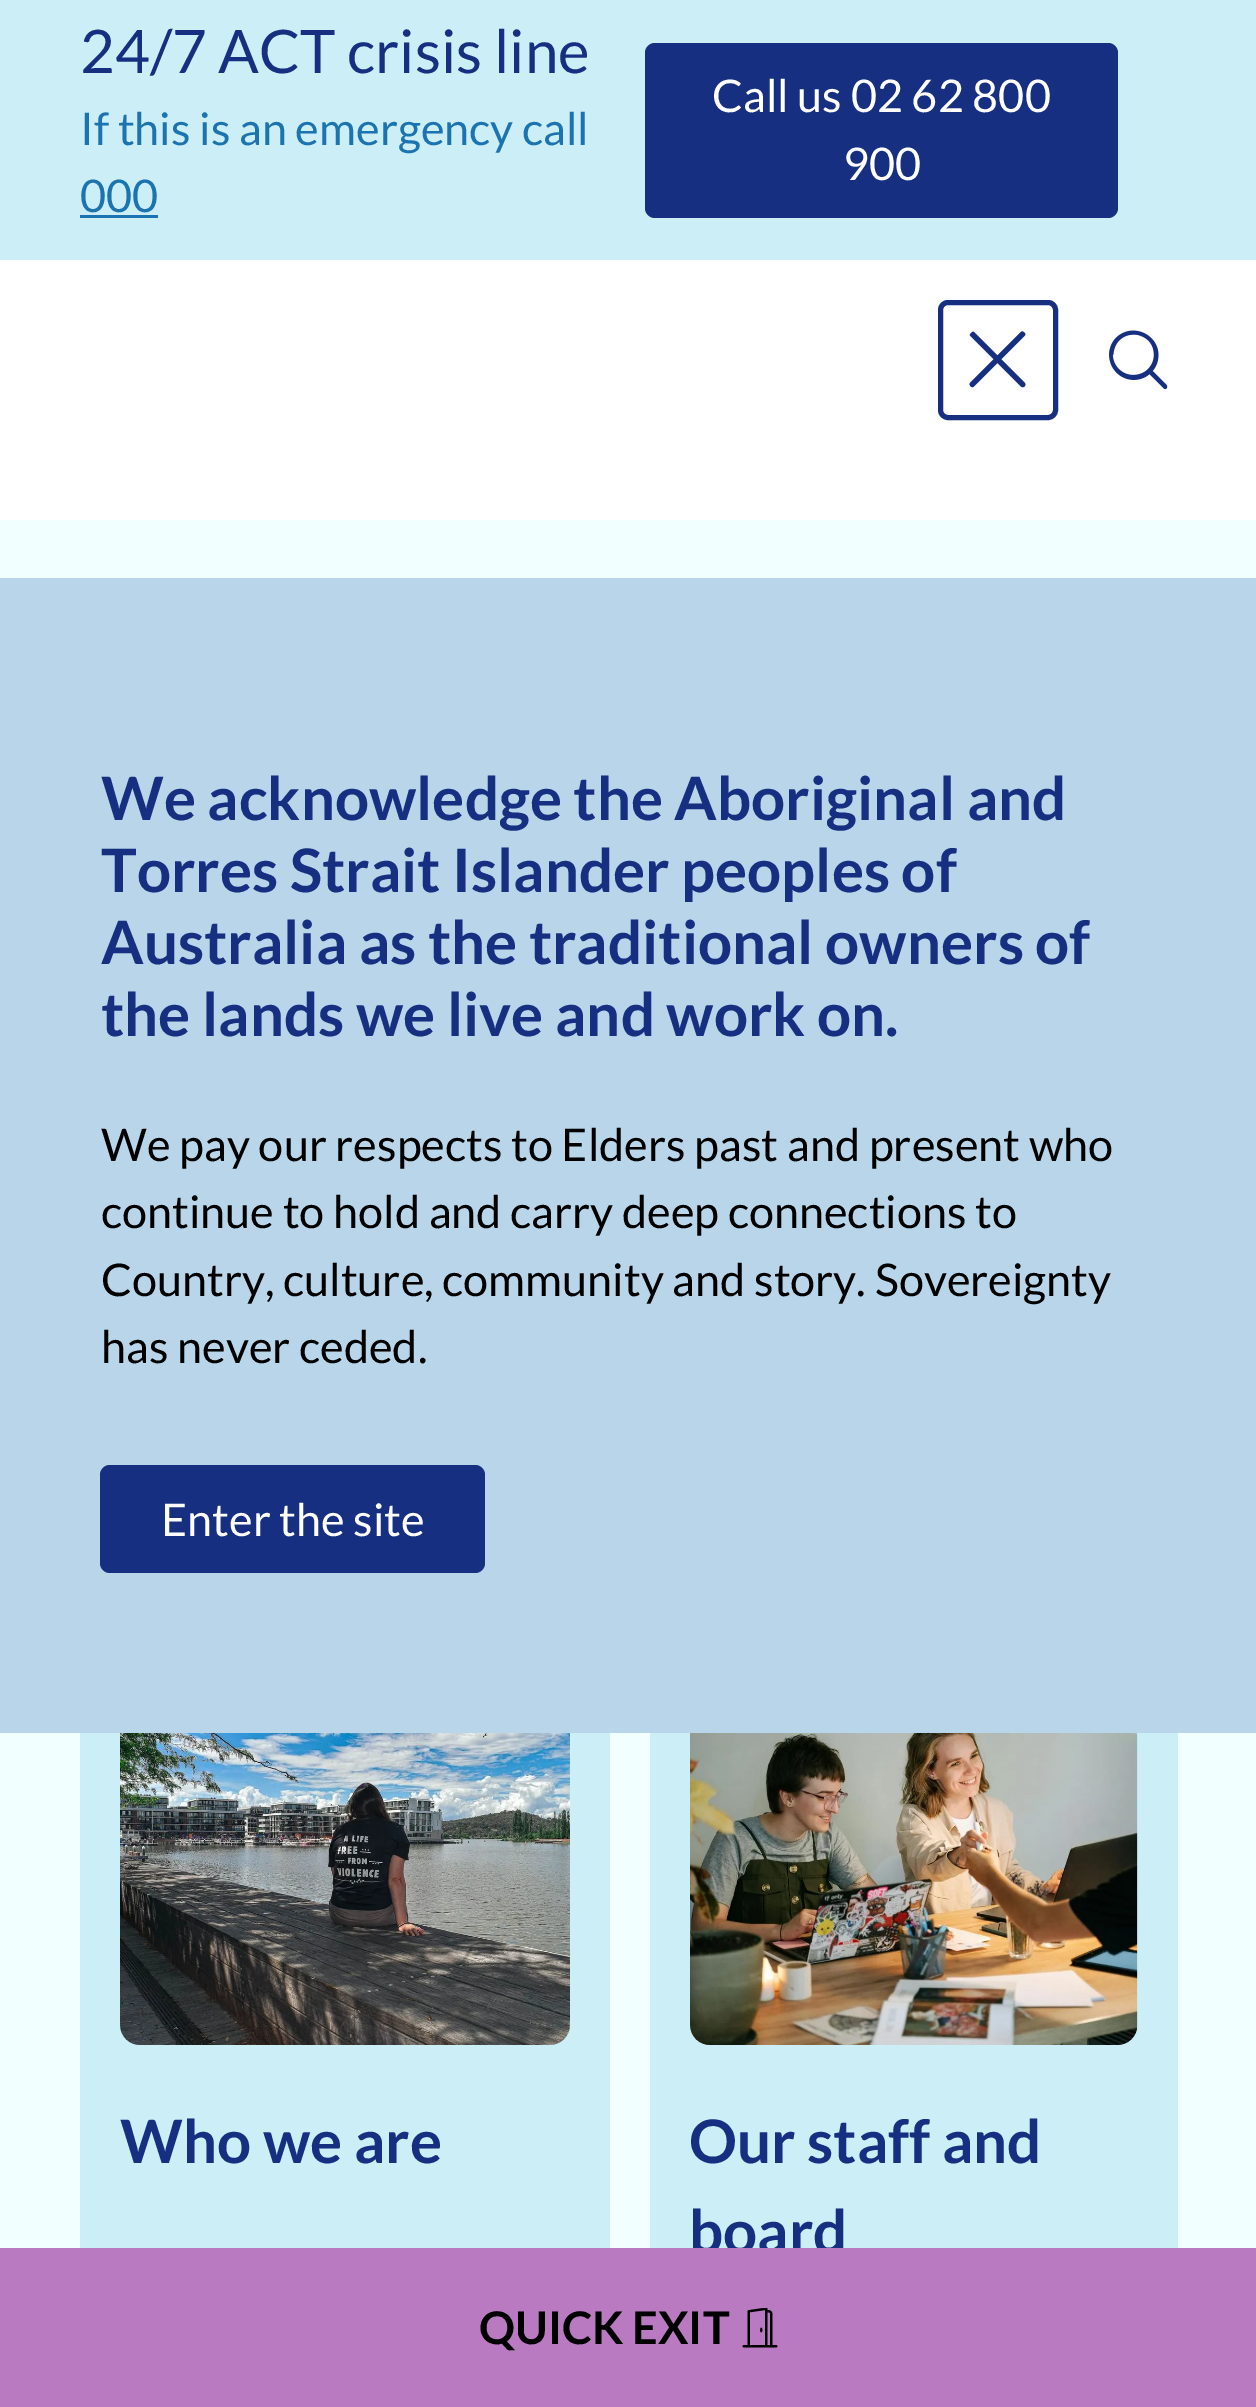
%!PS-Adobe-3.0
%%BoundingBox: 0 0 1256 2407
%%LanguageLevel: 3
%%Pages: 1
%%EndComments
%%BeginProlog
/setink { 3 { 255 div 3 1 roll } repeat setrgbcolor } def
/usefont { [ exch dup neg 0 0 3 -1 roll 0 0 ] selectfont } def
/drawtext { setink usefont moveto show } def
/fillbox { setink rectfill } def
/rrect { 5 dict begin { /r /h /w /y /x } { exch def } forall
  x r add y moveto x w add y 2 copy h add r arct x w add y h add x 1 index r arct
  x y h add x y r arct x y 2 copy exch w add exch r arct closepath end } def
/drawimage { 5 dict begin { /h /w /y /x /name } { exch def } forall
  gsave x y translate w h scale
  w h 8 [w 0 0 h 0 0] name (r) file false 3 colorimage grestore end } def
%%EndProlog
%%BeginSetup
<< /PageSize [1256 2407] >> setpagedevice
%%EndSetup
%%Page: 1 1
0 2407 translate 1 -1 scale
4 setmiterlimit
0 0 1256 2407 242 255 255 fillbox
0 0 1256 260 204 238 246 fillbox
(24/7 ACT crisis line) 80 73 /Lato-Regular 60 22 47 129 drawtext
(If this is an emergency call) 80 145 /Lato-Regular 45 27 115 176 drawtext
(000) 80 212 /Lato-Regular 45 27 115 176 drawtext
80 215 78 3 27 115 176 fillbox
22 47 129 setink
645 43 473 175 10 rrect fill
(Call us 02 62 800) 712 112 /Lato-Regular 45 255 255 255 drawtext
(900) 843 180 /Lato-Regular 45 255 255 255 drawtext
0 260 1256 260 255 255 255 fillbox
22 47 129 setink
5 setlinewidth
940.5 302.5 115 115 7.5 rrect stroke
(assets/img1.rgb) 969 331 57 57 drawimage
(assets/img2.rgb) 1109 330 59 59 drawimage
0 578 1256 1155 185 213 234 fillbox
(We acknowledge the Aboriginal and) 101 820 /Lato-Bold 60 22 47 129 drawtext
(Torres Strait Islander peoples of) 101 892 /Lato-Bold 60 22 47 129 drawtext
(Australia as the traditional owners of) 101 964 /Lato-Bold 60 22 47 129 drawtext
(the lands we live and work on.) 101 1036 /Lato-Bold 60 22 47 129 drawtext
(We pay our respects to Elders past and present who) 101 1161 /Lato-Regular 45 0 0 0 drawtext
(continue to hold and carry deep connections to) 101 1228 /Lato-Regular 45 0 0 0 drawtext
(Country, culture, community and story. Sovereignty) 101 1296 /Lato-Regular 45 0 0 0 drawtext
(has never ceded.) 101 1363 /Lato-Regular 45 0 0 0 drawtext
22 47 129 setink
100 1465 385 108 10 rrect fill
(Enter the site) 161 1536 /Lato-Regular 45 255 255 255 drawtext
80 1733 530 515 204 238 246 fillbox
(assets/img3.rgb) 120 1733 450 312 drawimage
(Who we are) 120 2163 /Lato-Bold 60 22 47 129 drawtext
650 1733 528 515 204 238 246 fillbox
(assets/img4.rgb) 690 1733 448 312 drawimage
(Our staff and) 689 2163 /Lato-Bold 60 22 47 129 drawtext
(board) 689 2253 /Lato-Bold 60 22 47 129 drawtext
0 2248 1256 159 186 122 194 fillbox
(QUICK EXIT) 479 2344 /Lato-Bold 45 0 0 0 drawtext
(assets/img5.rgb) 742 2308 36 40 drawimage
showpage
%%EOF
